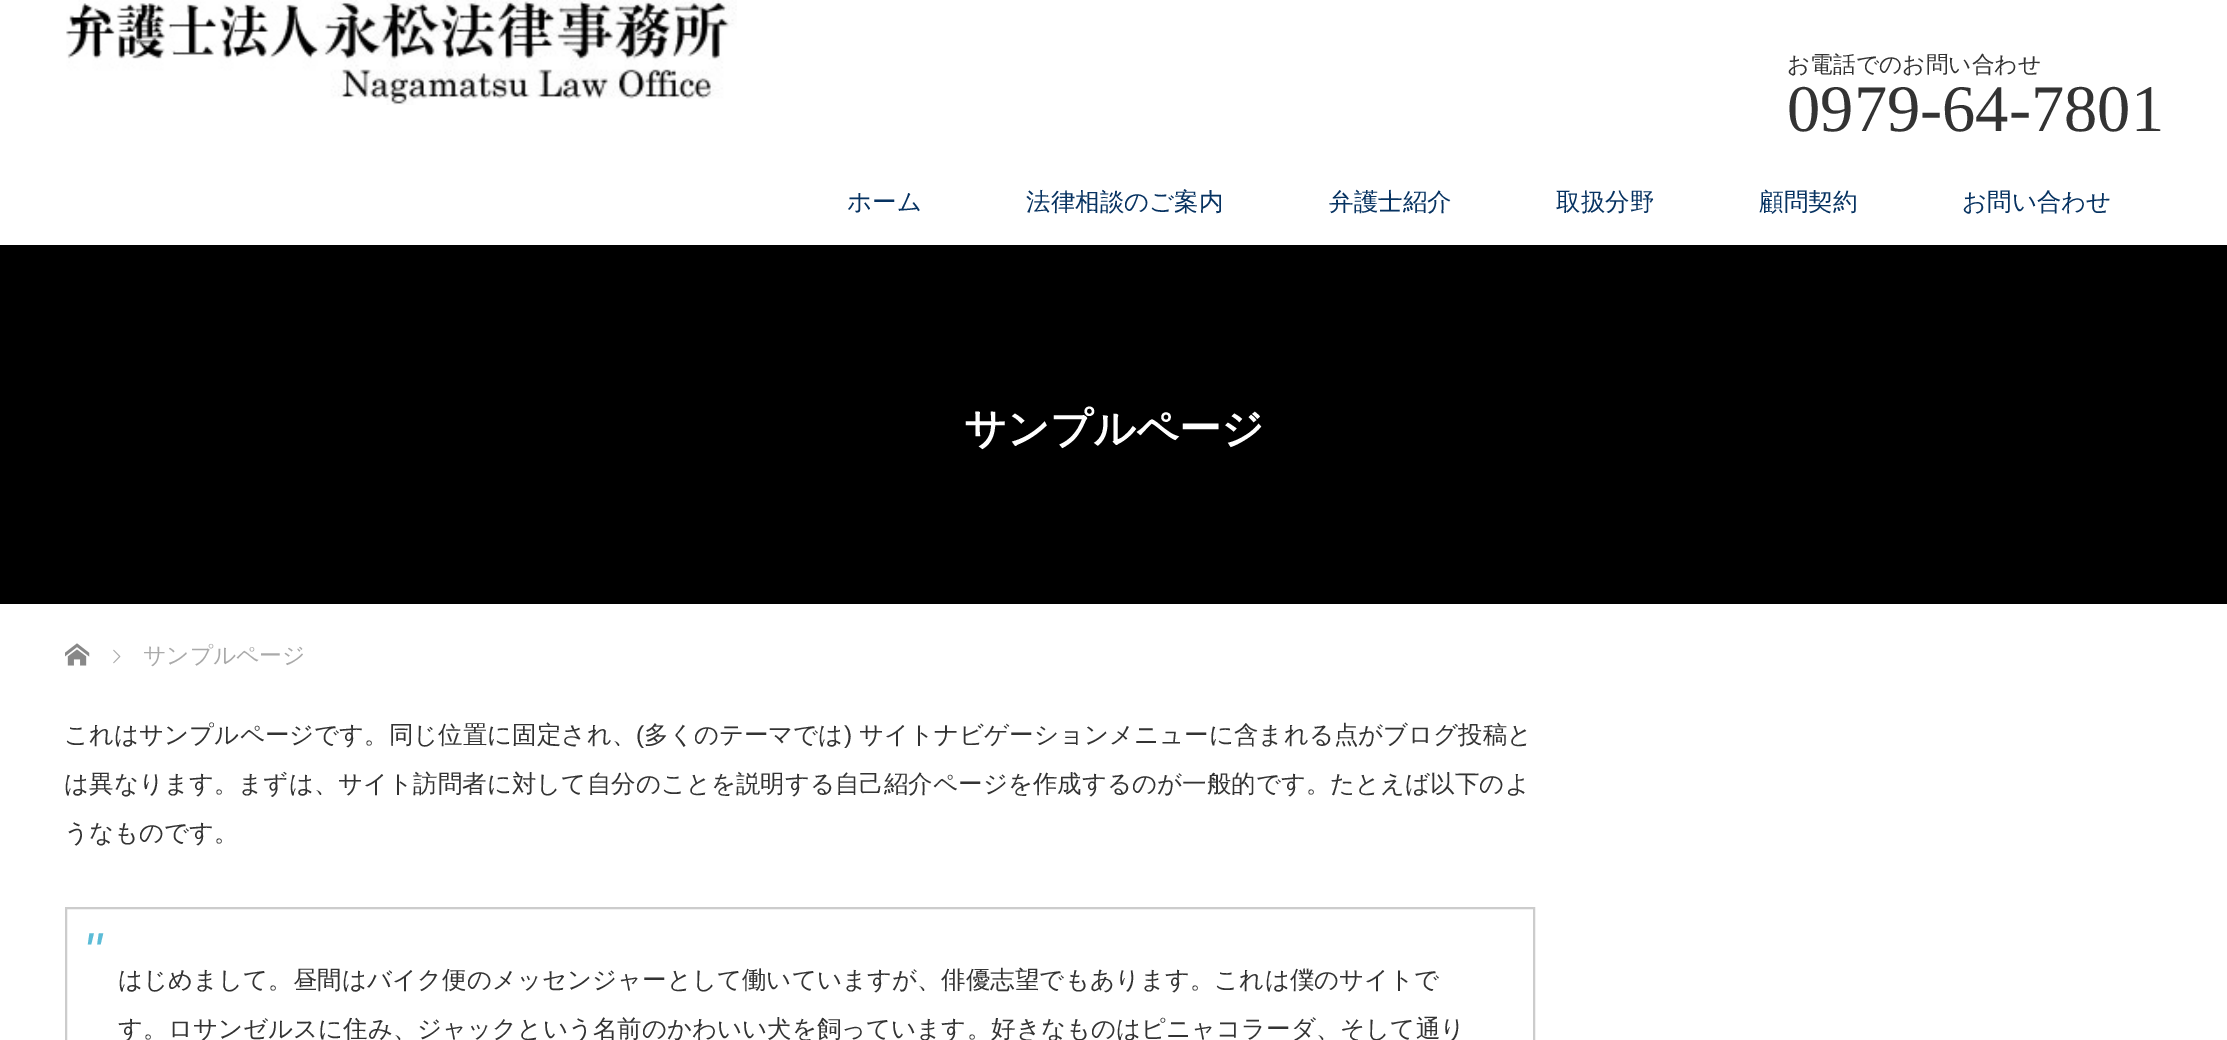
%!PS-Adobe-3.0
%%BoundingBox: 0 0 2227 1040
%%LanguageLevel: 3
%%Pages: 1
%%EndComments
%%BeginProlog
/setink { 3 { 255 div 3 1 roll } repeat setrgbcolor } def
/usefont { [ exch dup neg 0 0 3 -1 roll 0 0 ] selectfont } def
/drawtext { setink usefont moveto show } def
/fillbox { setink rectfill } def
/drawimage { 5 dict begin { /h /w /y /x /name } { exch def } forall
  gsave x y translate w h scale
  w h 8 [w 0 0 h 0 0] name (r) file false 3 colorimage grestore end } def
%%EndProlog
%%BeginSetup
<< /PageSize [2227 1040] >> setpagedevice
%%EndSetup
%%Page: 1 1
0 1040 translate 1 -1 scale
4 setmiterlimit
0 0 2227 1040 255 255 255 fillbox
(assets/img1.rgb) 66 0 671 105 drawimage
(お電話でのお問い合わせ) 1787 72 /WenQuanYiZenHei-Medium 22.75 51 51 51 drawtext
(0979-64-7801) 1787 131 /LiberationSerif-Regular 66.5 51 51 51 drawtext
(ホーム) 847 210 /WenQuanYiZenHei-Medium 24.5 6 50 97 drawtext
(法律相談のご案内) 1026 210 /WenQuanYiZenHei-Medium 24.5 6 50 97 drawtext
(弁護士紹介) 1329 210 /WenQuanYiZenHei-Medium 24.5 6 50 97 drawtext
(取扱分野) 1556 210 /WenQuanYiZenHei-Medium 24.5 6 50 97 drawtext
(顧問契約) 1759 210 /WenQuanYiZenHei-Medium 24.5 6 50 97 drawtext
(お問い合わせ) 1962 210 /WenQuanYiZenHei-Medium 24.5 6 50 97 drawtext
0 245 2227 359 0 0 0 fillbox
(サンプルページ) 964 443 /WenQuanYiZenHei-Bold 42 255 255 255 drawtext
(assets/img2.rgb) 65 643 25 23 drawimage
(assets/img3.rgb) 113 649 8 15 drawimage
(サンプルページ) 143 663 /WenQuanYiZenHei-Medium 22.75 170 170 170 drawtext
(これはサンプルページです。同じ位置に固定され、) 64 743 /WenQuanYiZenHei-Medium 24.5 51 51 51 drawtext
(\() 636 743 /LiberationSans-Regular 24.5 51 51 51 drawtext
(多くのテーマでは) 644 743 /WenQuanYiZenHei-Medium 24.5 51 51 51 drawtext
(\)) 844 743 /LiberationSans-Regular 24.5 51 51 51 drawtext
(サイトナビゲーションメニューに含まれる点がブログ投稿と) 859 743 /WenQuanYiZenHei-Medium 24.5 51 51 51 drawtext
(は異なります。まずは、サイト訪問者に対して自分のことを説明する自己紹介ページを作成するのが一般的です。たとえば以下のよ) 64 792 /WenQuanYiZenHei-Medium 24.5 51 51 51 drawtext
(うなものです。) 64 841 /WenQuanYiZenHei-Medium 24.5 51 51 51 drawtext
204 204 204 setink
2 setlinewidth
66 908 1468 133 rectstroke
(") 83 969 /LiberationSans-Italic 52 92 188 215 drawtext
(はじめまして。昼間はバイク便のメッセンジャーとして働いていますが、俳優志望でもあります。これは僕のサイトで) 118 988 /WenQuanYiZenHei-Medium 24.5 51 51 51 drawtext
(す。ロサンゼルスに住み、ジャックという名前のかわいい犬を飼っています。好きなものはピニャコラーダ、そして通り) 118 1037 /WenQuanYiZenHei-Medium 24.5 51 51 51 drawtext
showpage
%%EOF
